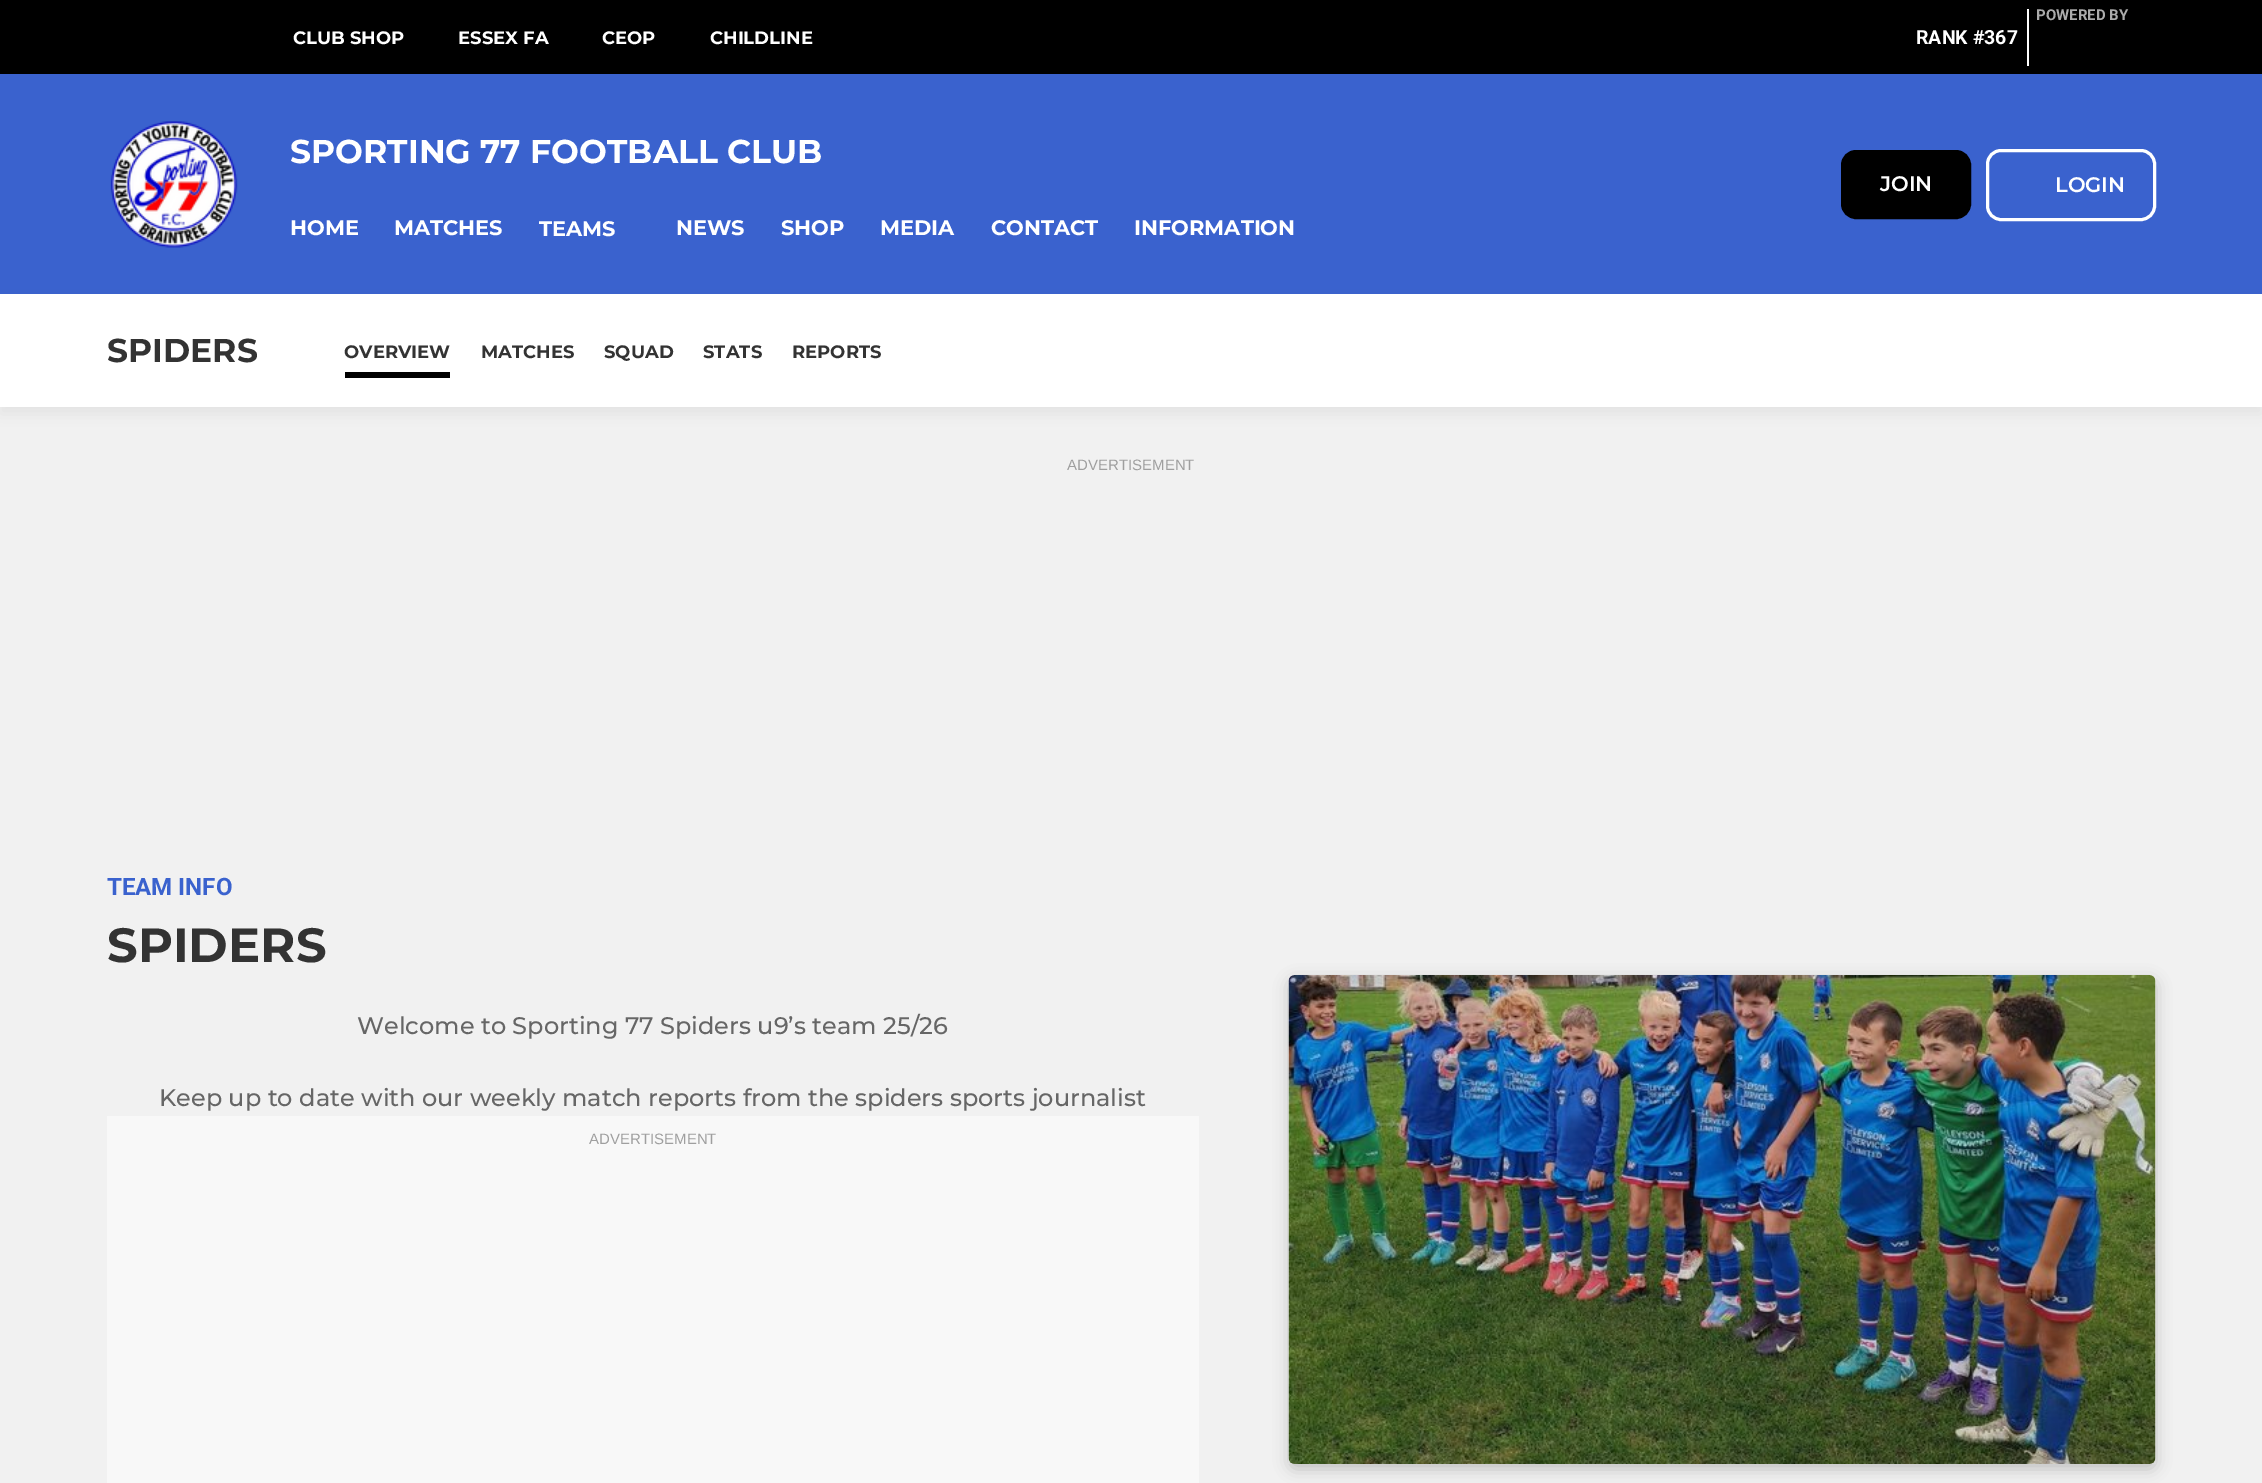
%!PS-Adobe-3.0
%%BoundingBox: 0 0 2262 1483
%%LanguageLevel: 3
%%Pages: 1
%%EndComments
%%BeginProlog
/setink { 3 { 255 div 3 1 roll } repeat setrgbcolor } def
/usefont { [ exch dup neg 0 0 3 -1 roll 0 0 ] selectfont } def
/drawtext { setink usefont moveto show } def
/fillbox { setink rectfill } def
/setalpha { dup .setfillconstantalpha .setstrokeconstantalpha } def
/rrect { 5 dict begin { /r /h /w /y /x } { exch def } forall
  x r add y moveto x w add y 2 copy h add r arct x w add y h add x 1 index r arct
  x y h add x y r arct x y 2 copy exch w add exch r arct closepath end } def
/softshadow { 12 dict begin { /a /b /q /h /w /y /x } { exch def } forall gsave /was 0 def
  9 -2 -9 { dup b mul 4 div /e exch def 1 sub .425 mul 2.718 exch exp 1 add a .99 .min exch div /now exch def
    1 1 now sub 1 was sub div sub setalpha /was now def
    w h .min e 2 mul add 0 gt { x e sub y e sub w e 2 mul add h e 2 mul add
      q e add b .6 mul add w h .min 2 div e add .min 0 .max rrect fill } if } for grestore end } def
/drawimage { 5 dict begin { /h /w /y /x /name } { exch def } forall
  gsave x y translate w h scale
  w h 8 [w 0 0 h 0 0] name (r) file false 3 colorimage grestore end } def
%%EndProlog
%%BeginSetup
<< /PageSize [2262 1483] /PageUsesTransparency true >> setpagedevice
%%EndSetup
%%Page: 1 1
0 .pushpdf14devicefilter
0 1483 translate 1 -1 scale
4 setmiterlimit
0 0 2262 1483 241 241 241 fillbox
0 74 2262 220 58 98 206 fillbox
0 0 2262 74 0 0 0 fillbox
(CLUB SHOP) 293 44 /Montserrat-Bold 18 255 255 255 drawtext
(ESSEX FA) 458 44 /Montserrat-Bold 18 255 255 255 drawtext
(CEOP) 602 44 /Montserrat-Bold 18 255 255 255 drawtext
(CHILDLINE) 710 44 /Montserrat-Bold 18 255 255 255 drawtext
2027 9 2 57 255 255 255 fillbox
(POWERED BY) 2036 20 /Roboto-Bold 15 171 171 171 drawtext
(RANK #367) 1916 44 /Roboto-Bold 19.5 255 255 255 drawtext
(assets/img1.rgb) 110 121 128 127 drawimage
(SPORTING 77 FOOTBALL CLUB) 290 163 /Montserrat-Bold 33 255 255 255 drawtext
(HOME) 290 235 /Montserrat-Bold 21 255 255 255 drawtext
(MATCHES) 394 235 /Montserrat-Bold 21 255 255 255 drawtext
(TEAMS) 539 236 /Montserrat-Bold 21 255 255 255 drawtext
(NEWS) 676 235 /Montserrat-Bold 21 255 255 255 drawtext
(SHOP) 781 235 /Montserrat-Bold 21 255 255 255 drawtext
(MEDIA) 880 235 /Montserrat-Bold 21 255 255 255 drawtext
(CONTACT) 991 235 /Montserrat-Bold 21 255 255 255 drawtext
(INFORMATION) 1134 235 /Montserrat-Bold 21 255 255 255 drawtext
0 0 0 setink
1842.5 151.5 127 66 13.5 rrect gsave fill grestore
3 setlinewidth
stroke
(JOIN) 1880 191 /Montserrat-SemiBold 21 255 255 255 drawtext
1987.5 150.5 167 69 13.5 rrect stroke
(LOGIN) 2055 192 /Montserrat-SemiBold 21 255 255 255 drawtext
0 0 0 setink
0 302 2262 112 0 7.5 0.05 softshadow
0 294 2262 113 255 255 255 fillbox
(SPIDERS) 107 362 /Montserrat-Bold 33 51 51 51 drawtext
(OVERVIEW) 344 358 /Montserrat-Bold 18 51 51 51 drawtext
345 372 105 6 0 0 0 fillbox
(MATCHES) 481 358 /Montserrat-Bold 18 51 51 51 drawtext
(SQUAD) 604 358 /Montserrat-Bold 18 51 51 51 drawtext
(STATS) 703 358 /Montserrat-Bold 18 51 51 51 drawtext
(REPORTS) 792 358 /Montserrat-Bold 18 51 51 51 drawtext
(ADVERTISEMENT) 1067 470 /LiberationSans-Regular 15 159 159 159 drawtext
(TEAM INFO) 107 895 /Roboto-Bold 24 58 98 206 drawtext
(SPIDERS) 107 962 /Montserrat-Bold 48 51 51 51 drawtext
(Welcome to Sporting 77 Spiders u9’s team 25/26) 357 1034 /Montserrat-Medium 24 102 102 102 drawtext
(Keep up to date with our weekly match reports from the spiders sports journalist) 159 1106 /Montserrat-Medium 24 102 102 102 drawtext
107 1116 1092 367 248 248 248 fillbox
(ADVERTISEMENT) 589 1144 /LiberationSans-Regular 15 159 159 159 drawtext
0 0 0 setink
1289 980 867 489 6 7.5 0.2 softshadow
(assets/img2.rgb) 1288 975 868 489 drawimage
.poppdf14devicefilter showpage
%%EOF
